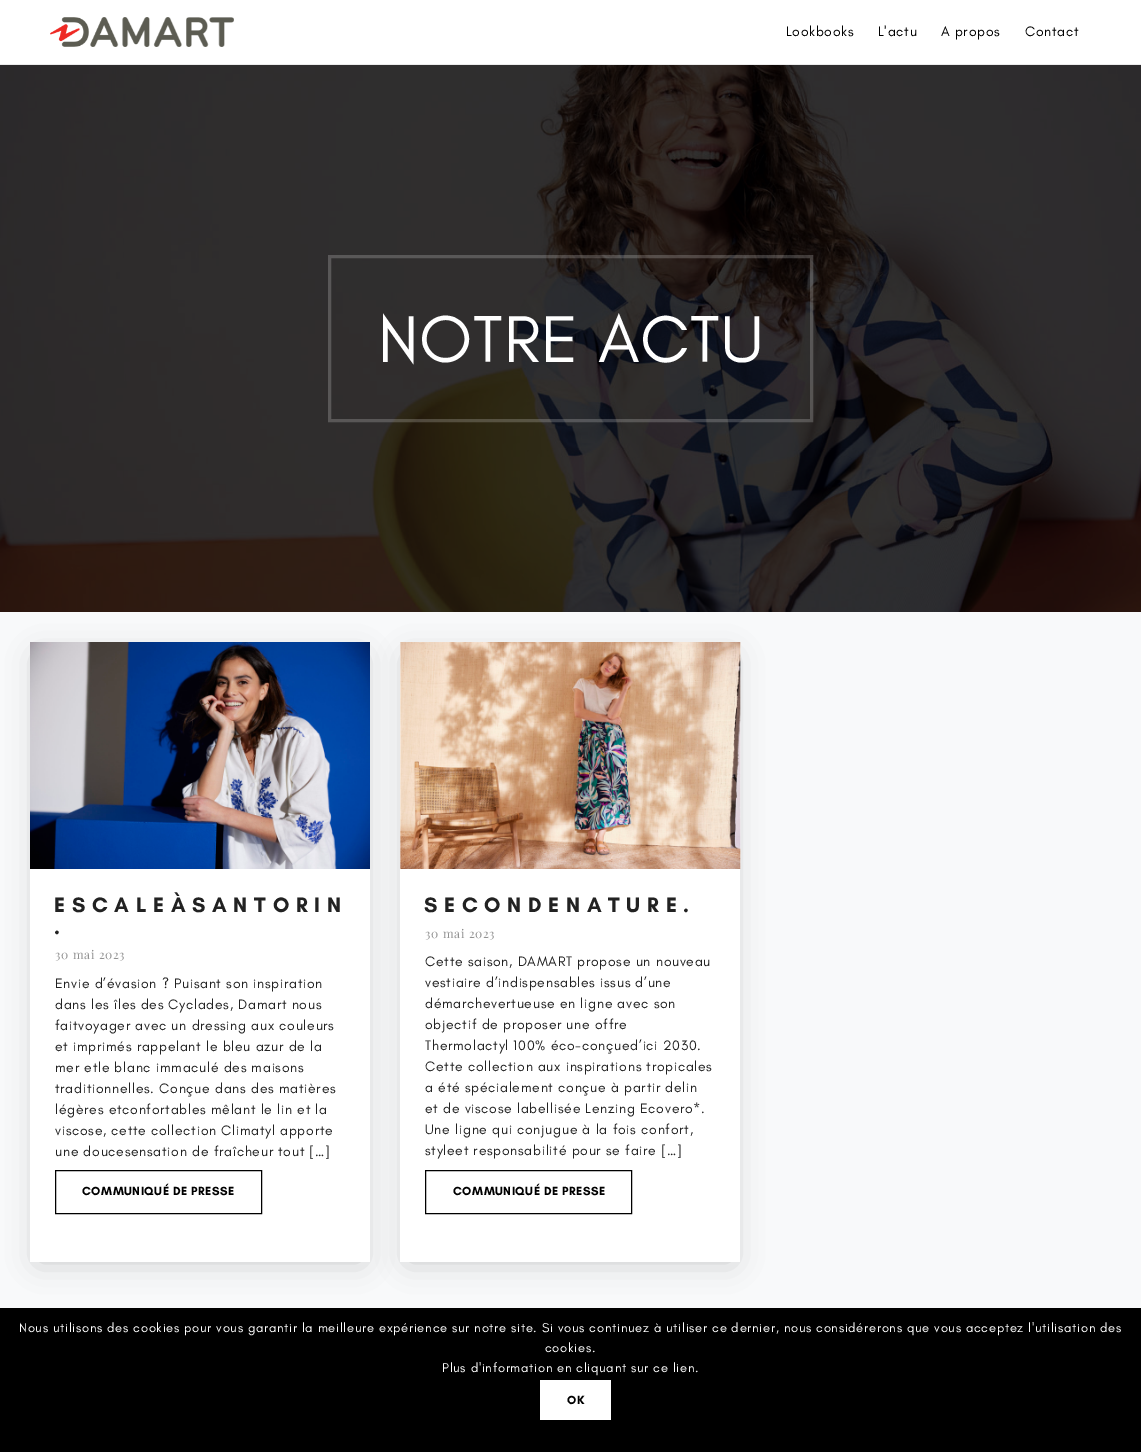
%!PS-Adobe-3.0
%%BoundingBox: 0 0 1141 1452
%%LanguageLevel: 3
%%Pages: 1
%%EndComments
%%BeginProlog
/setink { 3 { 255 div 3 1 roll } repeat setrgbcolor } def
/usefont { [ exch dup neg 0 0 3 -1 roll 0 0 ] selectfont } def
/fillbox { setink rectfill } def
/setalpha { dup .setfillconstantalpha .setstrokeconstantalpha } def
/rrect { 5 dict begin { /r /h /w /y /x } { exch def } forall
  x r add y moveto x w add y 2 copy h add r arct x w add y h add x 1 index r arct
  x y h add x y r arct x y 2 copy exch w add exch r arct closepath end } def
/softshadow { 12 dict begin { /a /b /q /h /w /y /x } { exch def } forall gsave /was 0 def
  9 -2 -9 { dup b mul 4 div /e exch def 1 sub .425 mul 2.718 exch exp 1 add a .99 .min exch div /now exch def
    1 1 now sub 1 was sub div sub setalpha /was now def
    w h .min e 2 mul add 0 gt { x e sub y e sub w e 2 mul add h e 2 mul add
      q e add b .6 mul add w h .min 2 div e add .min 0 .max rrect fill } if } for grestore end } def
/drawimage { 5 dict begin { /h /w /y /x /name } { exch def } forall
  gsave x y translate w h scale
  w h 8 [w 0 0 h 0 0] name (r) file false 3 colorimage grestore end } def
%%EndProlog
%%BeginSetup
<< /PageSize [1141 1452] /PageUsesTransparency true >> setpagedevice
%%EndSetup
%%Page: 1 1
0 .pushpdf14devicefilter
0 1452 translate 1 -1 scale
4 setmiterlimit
0 0 1141 1452 255 255 255 fillbox
0 64 1141 1 235 235 235 fillbox
(assets/img1.rgb) 50 17 184 30 drawimage
/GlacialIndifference-Regular 14 usefont
0 0 0 setink
786 36 moveto 0.7 0 (Lookbooks) ashow
878 36 moveto 0.7 0 (L'actu) ashow
941 36 moveto 0.7 0 (A propos) ashow
1025 36 moveto 0.7 0 (Contact) ashow
(assets/img2.rgb) 0 65 1141 547 drawimage
0.2 setalpha
255 255 255 setink
3 setlinewidth
329.5 256.5 482 164 rectstroke
/GlacialIndifference-Regular 67.5 usefont
1 setalpha
378 362 moveto 0.7 0 (NOTRE ACTU) ashow
0 612 1141 696 248 249 250 fillbox
0 0 0 setink
38 657 324 604 0 15 0.2 softshadow
30 869 340 393 255 255 255 fillbox
(assets/img3.rgb) 30 642 340 227 drawimage
/GlacialIndifference-Bold 21.3 usefont
34 34 34 setink
54 912 moveto 0.7 0 (E S C A L E À S A N T O R I N) ashow
54 934 moveto 0.7 0 (.) ashow
/PlayfairDisplay-Regular 12 usefont
144 144 144 setink
55 959 moveto 0.7 0 (30 mai 2023) ashow
/GlacialIndifference-Regular 14 usefont
34 34 34 setink
55 988 moveto 0.7 0 (Envie d’évasion ? Puisant son inspiration) ashow
55 1009 moveto 0.7 0 (dans les îles des Cyclades, Damart nous) ashow
55 1030 moveto 0.7 0 (faitvoyager avec un dressing aux couleurs) ashow
55 1051 moveto 0.7 0 (et imprimés rappelant le bleu azur de la) ashow
55 1072 moveto 0.7 0 (mer etle blanc immaculé des maisons) ashow
55 1093 moveto 0.7 0 (traditionnelles. Conçue dans des matières) ashow
55 1114 moveto 0.7 0 (légères etconfortables mêlant le lin et la) ashow
55 1135 moveto 0.7 0 (viscose, cette collection Climatyl apporte) ashow
55 1156 moveto 0.7 0 (une doucesensation de fraîcheur tout […]) ashow
0 0 0 setink
1 setlinewidth
55.5 1170.5 206 43 rectstroke
/GlacialIndifference-Bold 12 usefont
82 1195 moveto 0.5 0 (COMMUNIQUÉ DE PRESSE) ashow
408 657 324 604 0 15 0.2 softshadow
400 642 340 620 255 255 255 fillbox
(assets/img4.rgb) 400 642 341 227 drawimage
/GlacialIndifference-Bold 21.3 usefont
34 34 34 setink
424 912 moveto 0.7 0 (S E C O N D E N A T U R E .) ashow
/PlayfairDisplay-Regular 12 usefont
144 144 144 setink
425 938 moveto 0.7 0 (30 mai 2023) ashow
/GlacialIndifference-Regular 14 usefont
34 34 34 setink
425 966 moveto 0.7 0 (Cette saison, DAMART propose un nouveau) ashow
425 987 moveto 0.7 0 (vestiaire d’indispensables issus d’une) ashow
425 1008 moveto 0.7 0 (démarchevertueuse en ligne avec son) ashow
425 1029 moveto 0.7 0 (objectif de proposer une offre) ashow
425 1050 moveto 0.7 0 (Thermolactyl 100% éco-conçued’ici 2030.) ashow
425 1071 moveto 0.7 0 (Cette collection aux inspirations tropicales) ashow
425 1092 moveto 0.7 0 (a été spécialement conçue à partir delin) ashow
425 1113 moveto 0.7 0 (et de viscose labellisée Lenzing Ecovero*.) ashow
425 1134 moveto 0.7 0 (Une ligne qui conjugue à la fois confort,) ashow
425 1155 moveto 0.7 0 (styleet responsabilité pour se faire […]) ashow
0 0 0 setink
425.5 1170.5 206 43 rectstroke
/GlacialIndifference-Bold 12 usefont
453 1195 moveto 0.5 0 (COMMUNIQUÉ DE PRESSE) ashow
0 1308 1141 144 0 0 0 fillbox
/GlacialIndifference-Regular 13 usefont
255 255 255 setink
19 1332 moveto 0.7 0 (Nous utilisons des cookies pour vous garantir la meilleure expérience sur notre site. Si vous continuez à utiliser ce dernier, nous considérerons que vous acceptez l'utilisation des) ashow
545 1352 moveto 0.7 0 (cookies.) ashow
442 1372 moveto 0.7 0 (Plus d'information en cliquant sur ce lien.) ashow
540 1380 71 40 255 255 255 fillbox
/GlacialIndifference-Bold 12 usefont
0 0 0 setink
567 1404 moveto 0.5 0 (OK) ashow
.poppdf14devicefilter showpage
%%EOF
